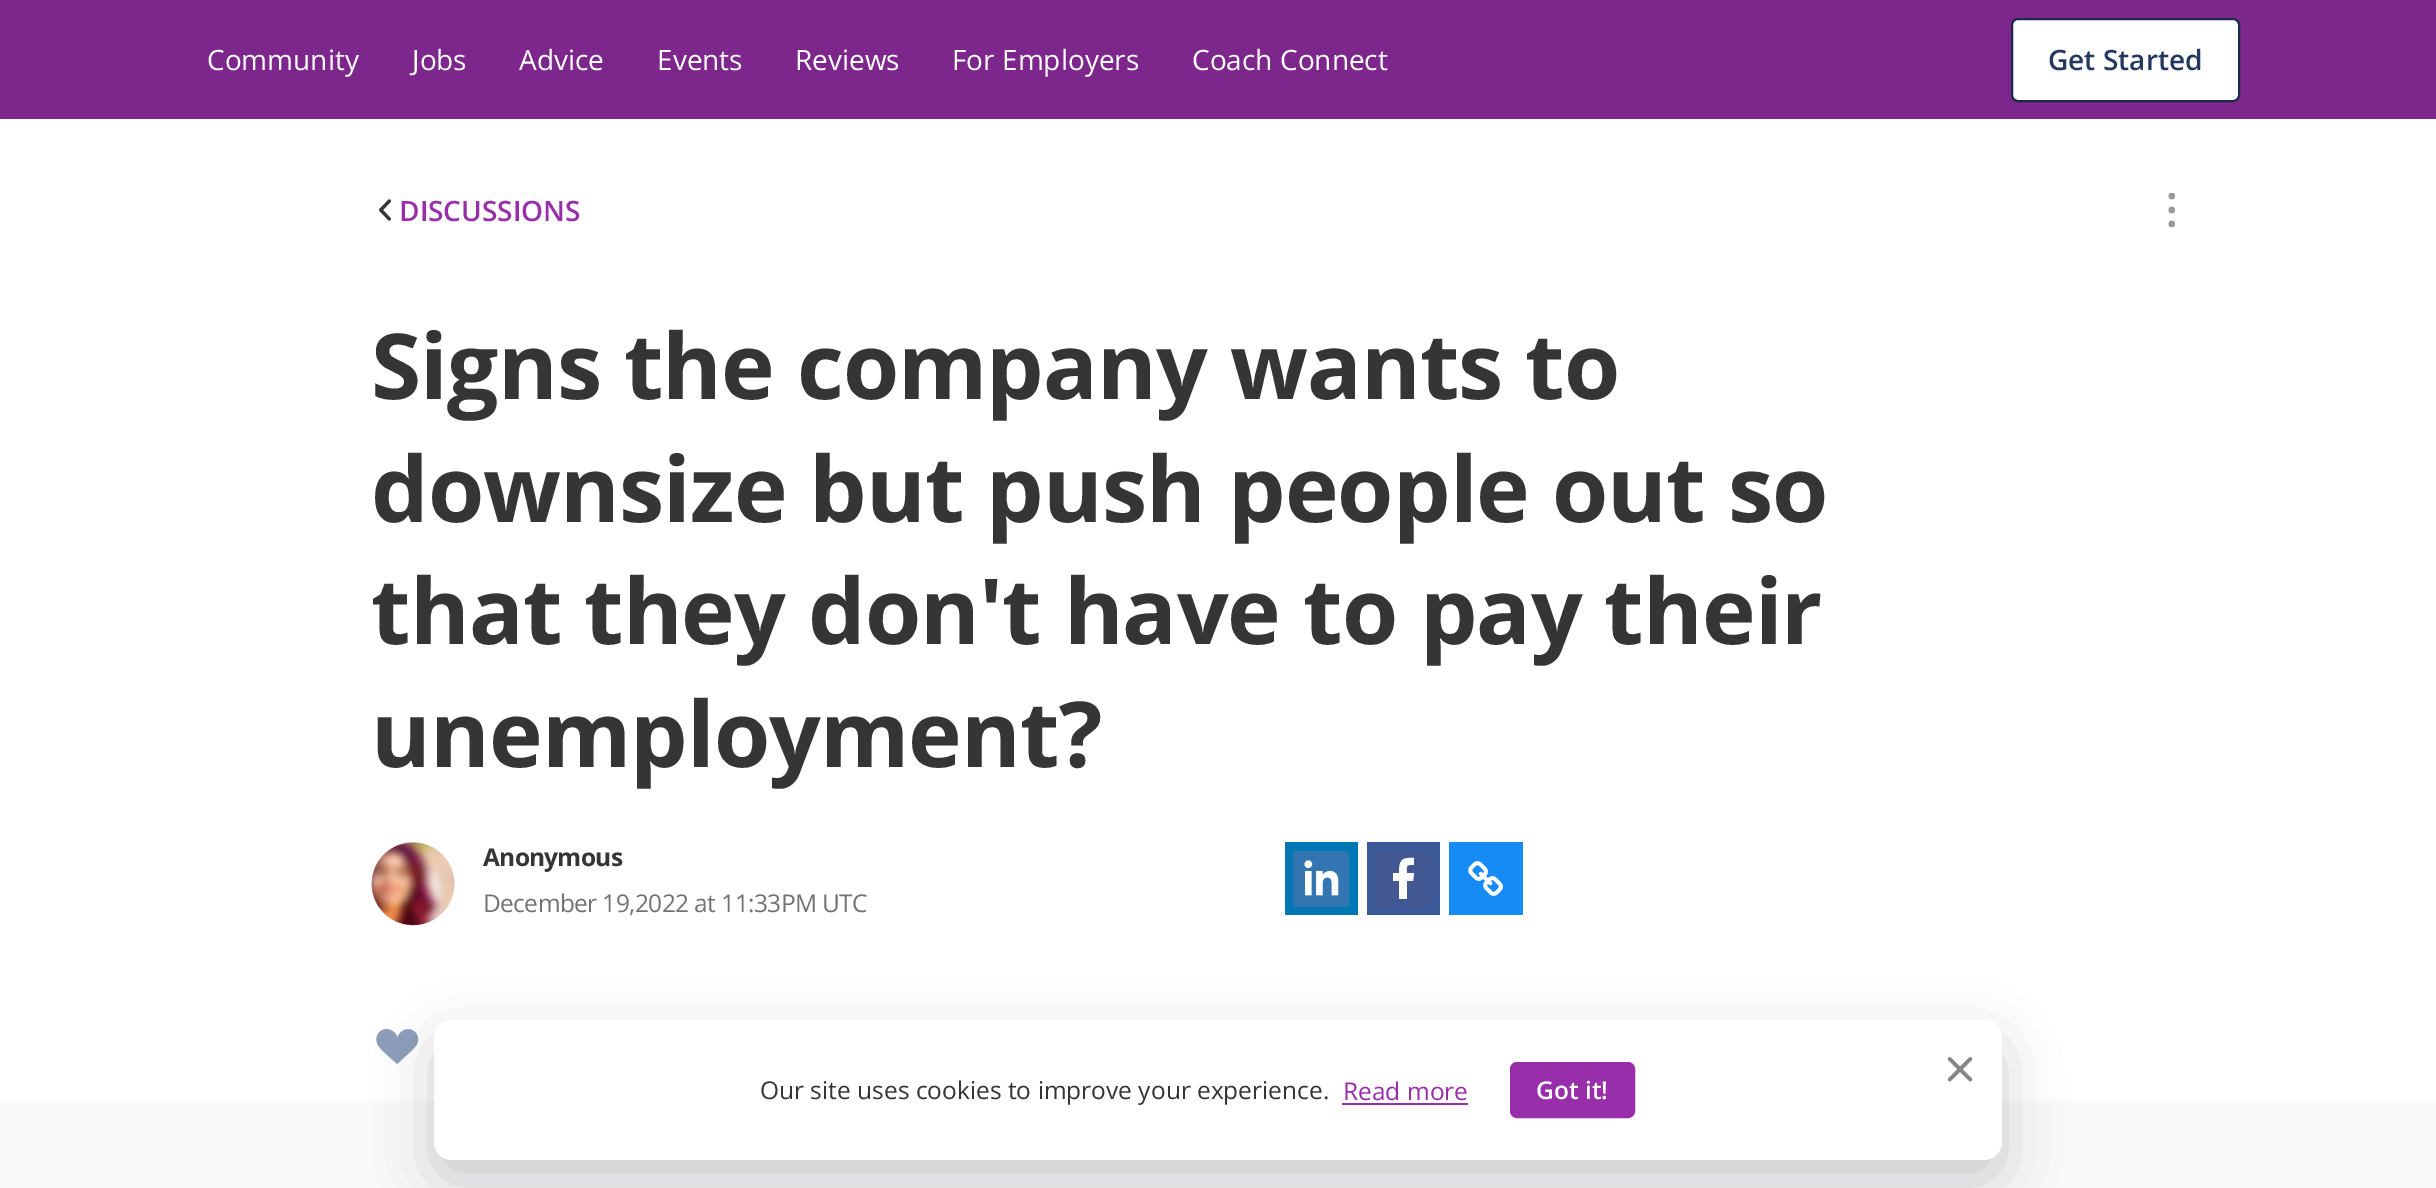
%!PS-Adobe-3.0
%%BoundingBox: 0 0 2436 1188
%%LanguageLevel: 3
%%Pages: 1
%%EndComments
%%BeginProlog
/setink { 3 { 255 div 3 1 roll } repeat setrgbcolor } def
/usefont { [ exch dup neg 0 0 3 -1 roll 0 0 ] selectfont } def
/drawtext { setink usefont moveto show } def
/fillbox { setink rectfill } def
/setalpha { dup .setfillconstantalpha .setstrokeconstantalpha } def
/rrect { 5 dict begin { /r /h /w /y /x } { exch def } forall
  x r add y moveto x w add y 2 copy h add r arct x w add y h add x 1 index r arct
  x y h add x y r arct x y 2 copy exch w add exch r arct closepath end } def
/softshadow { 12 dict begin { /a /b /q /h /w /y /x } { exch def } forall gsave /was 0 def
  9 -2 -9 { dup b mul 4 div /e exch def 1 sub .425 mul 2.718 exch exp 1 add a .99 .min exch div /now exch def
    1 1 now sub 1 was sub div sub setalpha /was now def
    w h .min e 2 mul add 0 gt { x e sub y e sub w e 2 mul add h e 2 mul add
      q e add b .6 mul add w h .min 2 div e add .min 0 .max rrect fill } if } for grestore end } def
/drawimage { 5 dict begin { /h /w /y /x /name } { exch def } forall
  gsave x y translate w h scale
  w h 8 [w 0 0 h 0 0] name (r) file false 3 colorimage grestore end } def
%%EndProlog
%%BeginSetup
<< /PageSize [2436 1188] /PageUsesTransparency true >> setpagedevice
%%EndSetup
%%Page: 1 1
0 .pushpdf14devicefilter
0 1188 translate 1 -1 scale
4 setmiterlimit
0 0 2436 1188 255 255 255 fillbox
0 0 2436 119 125 38 139 fillbox
(Community) 207 70 /OpenSans-Regular 28 255 255 255 drawtext
(Jobs) 412 70 /OpenSans-Regular 28 255 255 255 drawtext
(Advice) 519 70 /OpenSans-Regular 28 255 255 255 drawtext
(Events) 657 70 /OpenSans-Regular 28 255 255 255 drawtext
(Reviews) 795 70 /OpenSans-Regular 28 255 255 255 drawtext
(For Employers) 952 70 /OpenSans-Regular 28 255 255 255 drawtext
(Coach Connect) 1192 70 /OpenSans-Regular 28 255 255 255 drawtext
2012 19 227 82 6 rrect gsave fill grestore
27 43 74 setink
2 setlinewidth
stroke
(Get Started) 2048 70 /OpenSans-SemiBold 28 34 56 94 drawtext
(assets/img1.rgb) 379 199 12 22 drawimage
(DISCUSSIONS) 399 221 /OpenSans-SemiBold 28 152 46 169 drawtext
(assets/img2.rgb) 2168 193 7 35 drawimage
/OpenSans-Bold 91 usefont
53 53 53 setink
371 399 moveto -0.9 0 (Signs the company wants to) ashow
371 522 moveto -0.9 0 (downsize but push people out so) ashow
371 644 moveto -0.9 0 (that they don't have to pay their) ashow
371 767 moveto -0.9 0 (unemployment?) ashow
(assets/img3.rgb) 371 842 84 84 drawimage
/OpenSans-Bold 24.5 usefont
483 866 moveto -0.75 0 (Anonymous) ashow
/OpenSans-Regular 24.5 usefont
114 114 114 setink
483 912 moveto -0.6 0 (December 19,2022 at 11:33PM UTC) ashow
1285 842 73 73 0 119 181 fillbox
(assets/img4.rgb) 1293 851 56 56 drawimage
1367 842 73 73 59 89 152 fillbox
66 88 147 setink
1376 851 56 56 3 rrect fill
255 255 255 setink
1410 865 moveto 1414 865 lineto 1414 858 lineto 1401 857 1399 861 1399 873 curveto 1393 873 lineto 1393 881 lineto 1399 881 lineto 1399 899 lineto 1407 899 lineto 1407 881 lineto 1413 881 lineto 1414 873 lineto 1407 873 lineto 1407 870 1405 865 1410 865 curveto closepath eofill
1449 842 74 73 23 139 244 fillbox
(assets/img5.rgb) 1468 861 35 35 drawimage
(assets/img6.rgb) 376 1029 43 35 drawimage
0 1101 2436 87 249 249 251 fillbox
53 53 53 setink
434 1041 1568 140 18 28 0.24 softshadow
255 255 255 setink
434 1020 1568 140 18 rrect fill
(assets/img7.rgb) 1947 1057 26 25 drawimage
(Our site uses cookies to improve your experience.) 760 1099 /OpenSans-Regular 24.5 53 53 53 drawtext
(Read more) 1343 1100 /OpenSans-Regular 24.5 152 46 169 drawtext
1342 1103 126 2 152 46 169 fillbox
1511 1063 123 54 6 rrect gsave fill grestore
stroke
(Got it!) 1536 1099 /OpenSans-SemiBold 24.5 255 255 255 drawtext
.poppdf14devicefilter showpage
%%EOF
